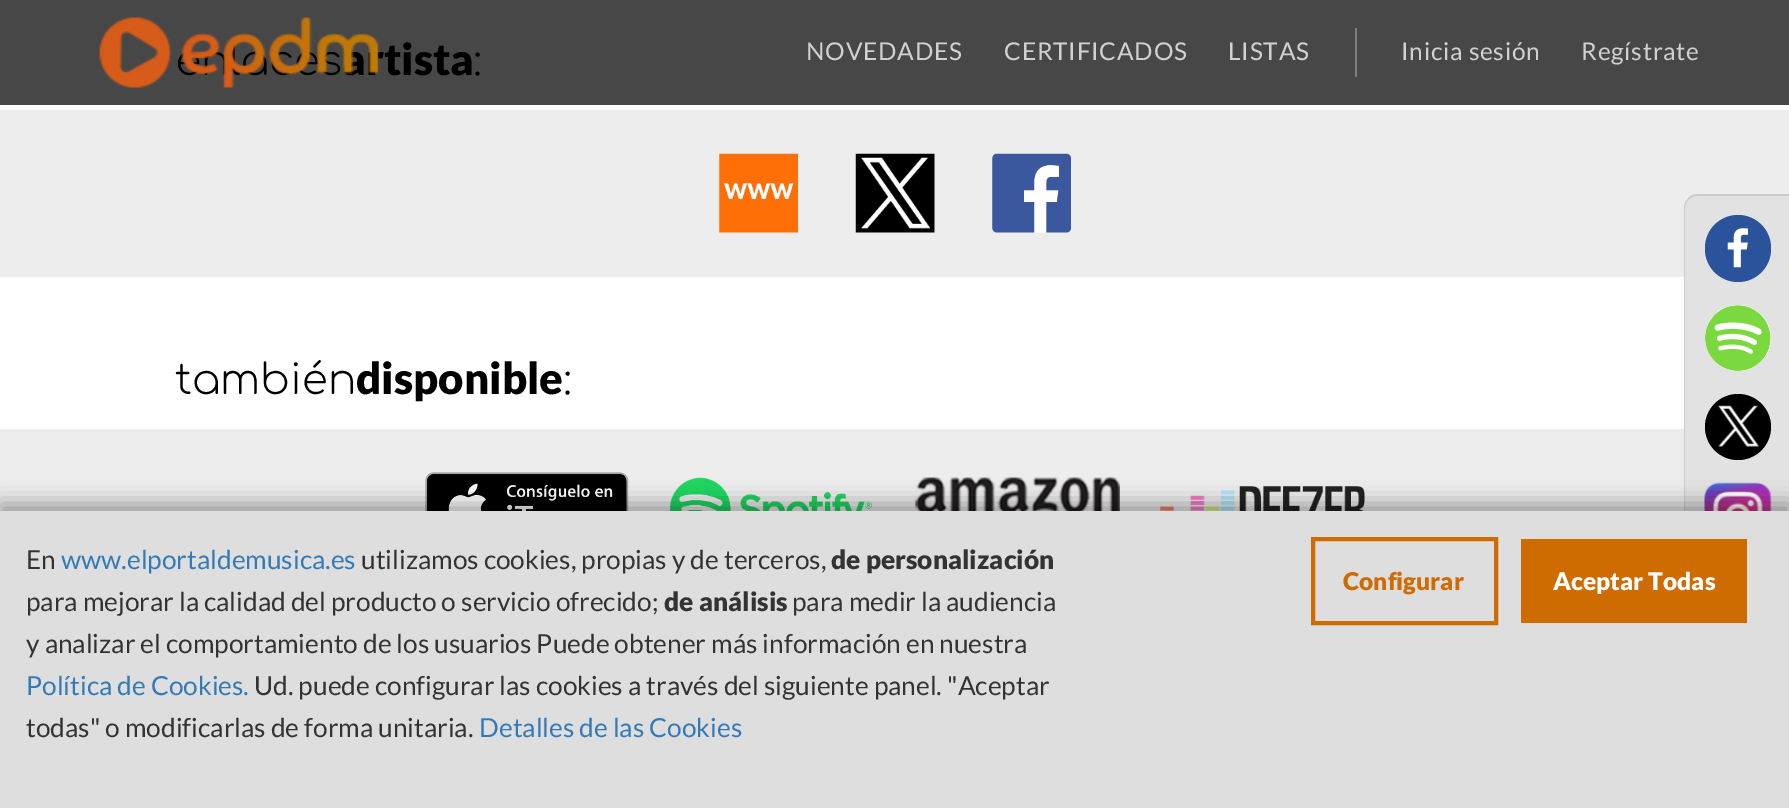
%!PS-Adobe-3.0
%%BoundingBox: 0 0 1789 808
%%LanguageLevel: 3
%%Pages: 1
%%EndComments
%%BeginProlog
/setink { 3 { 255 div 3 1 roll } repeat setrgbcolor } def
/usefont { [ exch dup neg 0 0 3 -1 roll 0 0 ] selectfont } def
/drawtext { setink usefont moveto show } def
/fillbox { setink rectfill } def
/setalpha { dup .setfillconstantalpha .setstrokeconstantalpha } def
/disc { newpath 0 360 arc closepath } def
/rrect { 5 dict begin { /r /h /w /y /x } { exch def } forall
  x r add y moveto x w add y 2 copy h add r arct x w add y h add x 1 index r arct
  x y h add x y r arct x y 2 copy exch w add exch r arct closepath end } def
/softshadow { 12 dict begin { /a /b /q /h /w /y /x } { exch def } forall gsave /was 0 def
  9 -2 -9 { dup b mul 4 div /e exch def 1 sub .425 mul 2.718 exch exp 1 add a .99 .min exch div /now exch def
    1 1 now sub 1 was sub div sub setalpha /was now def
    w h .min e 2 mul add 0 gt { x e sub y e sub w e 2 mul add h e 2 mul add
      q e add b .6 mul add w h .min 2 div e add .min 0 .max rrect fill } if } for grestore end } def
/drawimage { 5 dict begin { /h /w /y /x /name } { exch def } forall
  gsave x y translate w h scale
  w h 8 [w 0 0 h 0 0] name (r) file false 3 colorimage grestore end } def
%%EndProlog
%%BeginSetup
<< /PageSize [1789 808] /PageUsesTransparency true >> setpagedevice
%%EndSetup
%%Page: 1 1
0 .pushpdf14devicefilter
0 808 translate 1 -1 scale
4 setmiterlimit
0 0 1789 808 255 255 255 fillbox
0 0 1789 105 71 71 71 fillbox
(enlaces) 175 75 /Comfortaa-Light 42 0 0 0 drawtext
(artista) 342 75 /Lato-Black 43.75 0 0 0 drawtext
(:) 474 75 /Comfortaa-Light 42 0 0 0 drawtext
0 110 1789 167 237 237 237 fillbox
(assets/img1.rgb) 719 153 79 80 drawimage
(assets/img2.rgb) 855 153 80 80 drawimage
(assets/img3.rgb) 992 153 79 80 drawimage
(también) 175 394 /Comfortaa-Light 42 0 0 0 drawtext
(disponible) 356 394 /Lato-Black 43.75 0 0 0 drawtext
(:) 564 394 /Comfortaa-Light 42 0 0 0 drawtext
0 429 1684 82 237 237 237 fillbox
(assets/img4.rgb) 425 472 204 39 drawimage
(assets/img5.rgb) 670 477 202 34 drawimage
(assets/img6.rgb) 915 477 205 34 drawimage
(assets/img7.rgb) 1160 486 205 25 drawimage
(assets/img8.rgb) 99 17 281 72 drawimage
/Lato-Regular 24.5 usefont
209 209 209 setink
806 60 moveto 0.75 0 (NOVEDADES) ashow
1004 60 moveto 0.75 0 (CERTIFICADOS) ashow
1228 60 moveto 0.75 0 (LISTAS) ashow
1355 28 2 49 126 126 126 fillbox
209 209 209 setink
1401 60 moveto 0.75 0 (Inicia sesión) ashow
1581 60 moveto 0.75 0 (Regístrate) ashow
226 226 226 setink
1698 194 moveto 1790 194 lineto 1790 674 lineto 1698 674 lineto 1690.5 674 1684 667.5 1684 660 curveto 1684 208 lineto 1684 200.5 1690.5 194 1698 194 curveto closepath fill
204 204 204 setink
1698 194 moveto 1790 194 lineto 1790 674 lineto 1698 674 lineto 1690 674 1684 667 1684 660 curveto 1684 208 lineto 1684 201 1690 194 1698 194 curveto closepath 1698 196 moveto 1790 196 lineto 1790 672 lineto 1698 672 lineto 1691 672 1685 667 1685 660 curveto 1685 208 lineto 1685 201 1691 196 1698 196 curveto closepath eofill
(assets/img12.rgb) 1704 482 68 29 drawimage
0 0 0 setink
0 504 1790 298 0 10.5 0.37 softshadow
0 511 1789 297 222 222 222 fillbox
(En) 26 569 /Lato-Regular 26.25 51 51 51 drawtext
(www.elportaldemusica.es) 61 569 /Lato-Regular 26.25 51 122 183 drawtext
(utilizamos cookies, propias y de terceros,) 361 569 /Lato-Regular 26.25 51 51 51 drawtext
(de personalización) 831 569 /Lato-Black 26.25 51 51 51 drawtext
(para mejorar la calidad del producto o servicio ofrecido;) 26 611 /Lato-Regular 26.25 51 51 51 drawtext
(de análisis) 664 611 /Lato-Black 26.25 51 51 51 drawtext
(para medir la audiencia) 792 611 /Lato-Regular 26.25 51 51 51 drawtext
(y analizar el comportamiento de los usuarios Puede obtener más información en nuestra) 26 653 /Lato-Regular 26.25 51 51 51 drawtext
(Política de Cookies.) 26 695 /Lato-Regular 26.25 51 122 183 drawtext
(Ud. puede configurar las cookies a través del siguiente panel. "Aceptar) 254 695 /Lato-Regular 26.25 51 51 51 drawtext
(todas" o modificarlas de forma unitaria.) 26 737 /Lato-Regular 26.25 51 51 51 drawtext
(Detalles de las Cookies) 479 737 /Lato-Regular 26.25 51 122 183 drawtext
206 107 1 setink
4 setlinewidth
1313 539 183 84 rectstroke
(Configurar) 1343 590 /Lato-Black 24.5 206 107 1 drawtext
1521 539 226 84 206 107 1 fillbox
(Aceptar Todas) 1553 590 /Lato-Black 24.5 255 255 255 drawtext
43 83 155 setink
1705 215 66 67 33 rrect fill
(assets/img9.rgb) 1727 228 21 40 drawimage
255 255 255 setink
1738 338 33 disc fill
(assets/img10.rgb) 1705 305 66 66 drawimage
0 0 0 setink
1738 427 33 disc fill
(assets/img11.rgb) 1718 405 42 42 drawimage
.poppdf14devicefilter showpage
%%EOF
